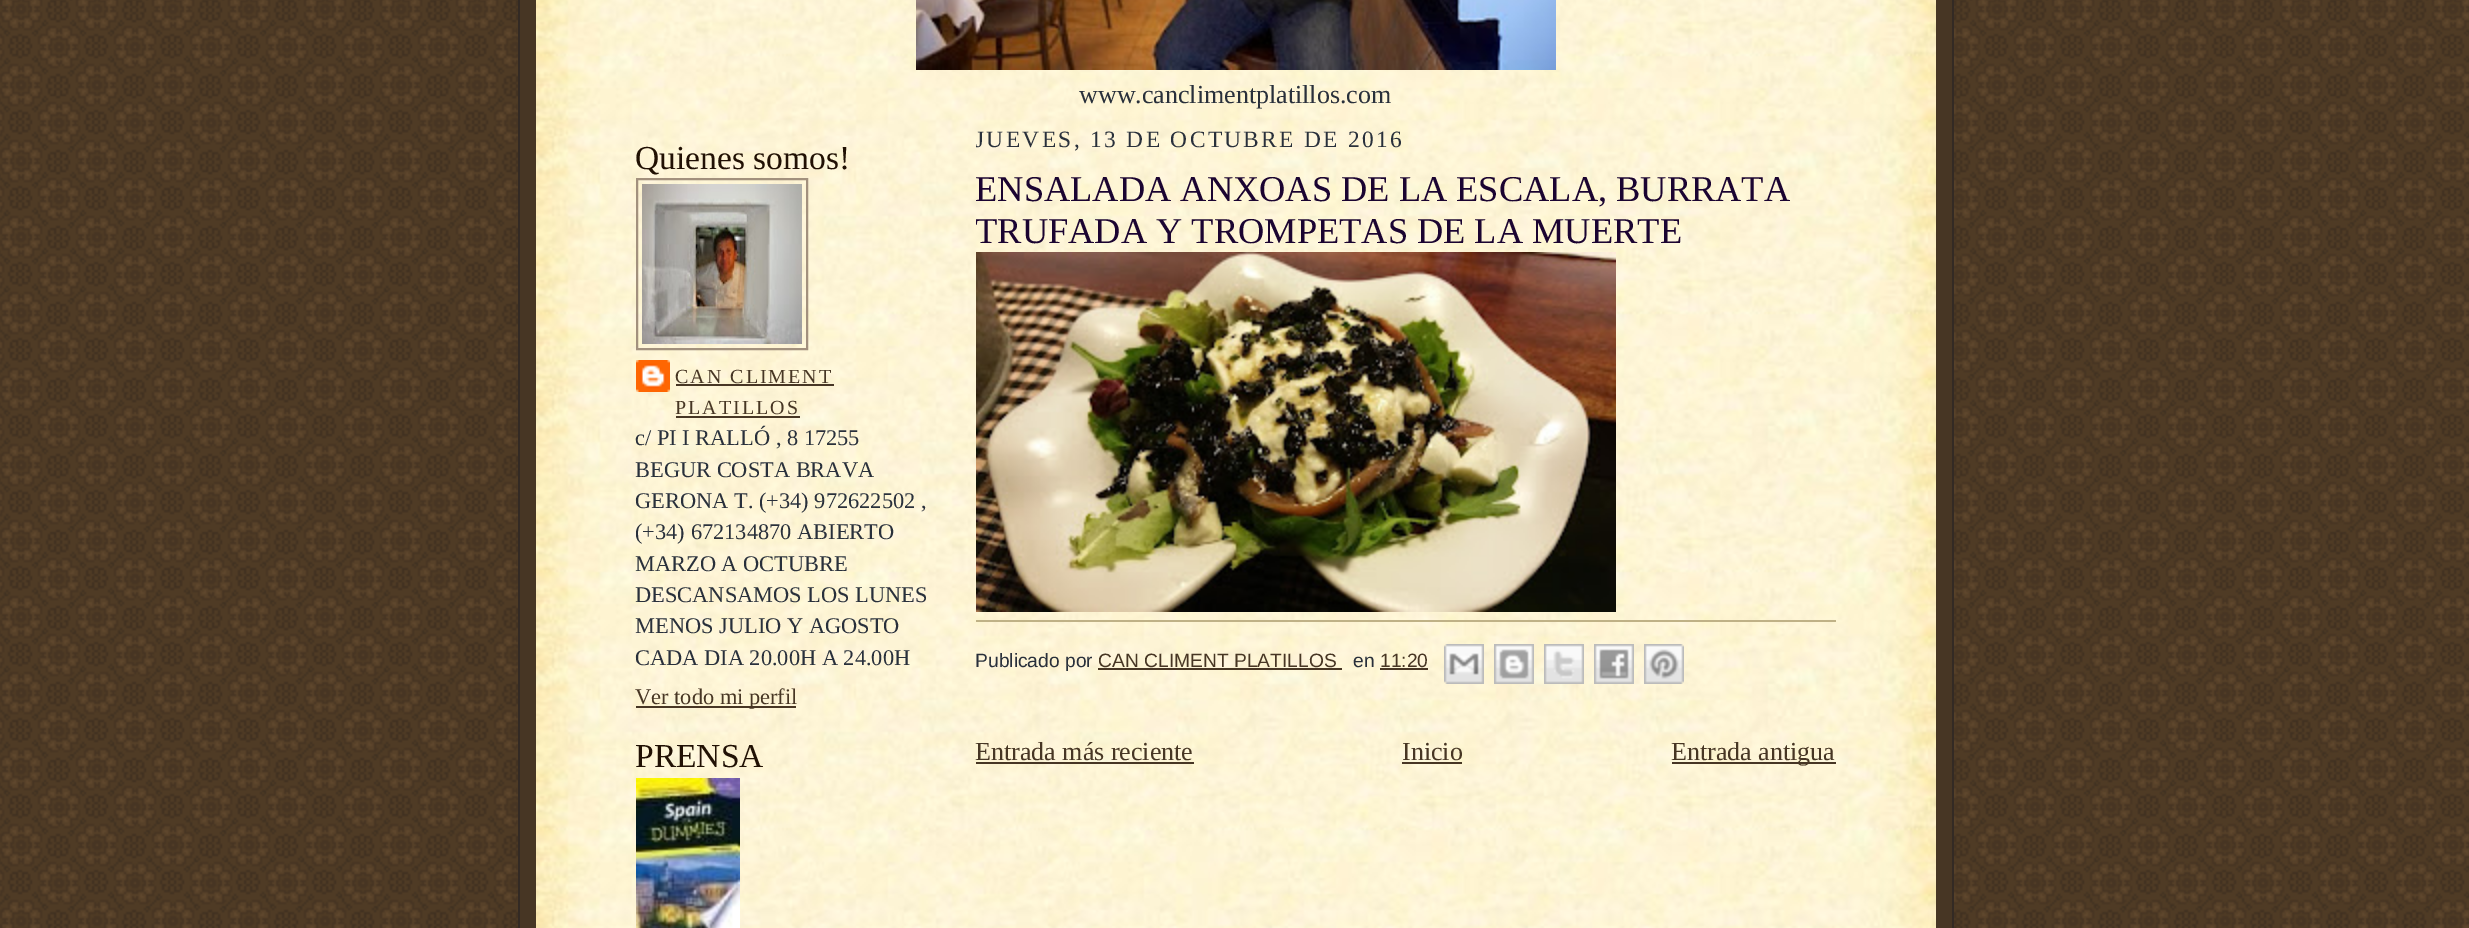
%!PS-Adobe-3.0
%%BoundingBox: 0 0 2469 928
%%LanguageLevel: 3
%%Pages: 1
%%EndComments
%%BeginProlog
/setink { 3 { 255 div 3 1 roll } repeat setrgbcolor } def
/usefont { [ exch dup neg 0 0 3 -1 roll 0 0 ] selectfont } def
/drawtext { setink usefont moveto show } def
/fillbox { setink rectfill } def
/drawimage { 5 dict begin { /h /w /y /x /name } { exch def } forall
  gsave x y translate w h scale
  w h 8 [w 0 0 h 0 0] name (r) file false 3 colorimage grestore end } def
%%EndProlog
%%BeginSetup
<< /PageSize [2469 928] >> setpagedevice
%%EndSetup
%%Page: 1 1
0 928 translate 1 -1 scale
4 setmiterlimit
0 0 2469 928 255 255 255 fillbox
(assets/img1.rgb) 0 0 2469 928 drawimage
520 0 1432 928 71 54 36 fillbox
1952 0 2 928 51 42 36 fillbox
518 0 2 928 51 42 36 fillbox
(assets/img2.rgb) 536 0 1400 928 drawimage
(assets/img3.rgb) 916 0 640 70 drawimage
(www.canclimentplatillos.com) 1079 103 /LiberationSerif-Regular 26 41 48 59 drawtext
(Quienes somos!) 635 169 /LiberationSerif-Regular 33.5 33 17 4 drawtext
162 144 125 setink
2 setlinewidth
637 179 170 170 rectstroke
(assets/img4.rgb) 642 184 160 160 drawimage
(assets/img5.rgb) 636 360 34 32 drawimage
/LiberationSerif-Regular 20 usefont
71 54 36 setink
675 383 moveto 2 0 (CAN CLIMENT) ashow
676 384 158 2 71 54 36 fillbox
675 414 moveto 2 0 (PLATILLOS) ashow
676 416 124 2 71 54 36 fillbox
(c/ PI I RALLÓ , 8 17255) 635 445 /LiberationSerif-Regular 22.4 41 48 59 drawtext
(BEGUR COSTA BRAVA) 635 477 /LiberationSerif-Regular 22.4 41 48 59 drawtext
(GERONA T. \(+34\) 972622502 ,) 635 508 /LiberationSerif-Regular 22.4 41 48 59 drawtext
(\(+34\) 672134870 ABIERTO) 635 539 /LiberationSerif-Regular 22.4 41 48 59 drawtext
(MARZO A OCTUBRE) 635 571 /LiberationSerif-Regular 22.4 41 48 59 drawtext
(DESCANSAMOS LOS LUNES) 635 602 /LiberationSerif-Regular 22.4 41 48 59 drawtext
(MENOS JULIO Y AGOSTO) 635 633 /LiberationSerif-Regular 22.4 41 48 59 drawtext
(CADA DIA 20.00H A 24.00H) 635 665 /LiberationSerif-Regular 22.4 41 48 59 drawtext
636 706 160 2 71 54 36 fillbox
(Ver todo mi perfil) 635 704 /LiberationSerif-Regular 22.4 71 54 36 drawtext
(PRENSA) 635 767 /LiberationSerif-Regular 33.5 33 17 4 drawtext
(assets/img6.rgb) 636 778 104 150 drawimage
gsave
976 110 860 748 rectclip
/LiberationSerif-Regular 23.4 usefont
41 48 59 setink
975 147 moveto 2.35 0 (JUEVES, 13 DE OCTUBRE DE 2016) ashow
grestore
(ENSALADA ANXOAS DE LA ESCALA, BURRATA) 975 201 /LiberationSerif-Regular 36.4 27 4 49 drawtext
gsave
976 110 860 748 rectclip
(TRUFADA Y TROMPETAS DE LA MUERTE) 975 243 /LiberationSerif-Regular 36.4 27 4 49 drawtext
grestore
(assets/img7.rgb) 976 252 640 360 drawimage
976 620 860 2 191 177 134 fillbox
(Publicado por) 975 667 /LiberationSans-Regular 19.25 41 48 59 drawtext
(CAN CLIMENT PLATILLOS) 1098 667 /LiberationSans-Regular 19.25 71 54 36 drawtext
1098 668 244 2 71 54 36 fillbox
(en) 1353 667 /LiberationSans-Regular 19.25 41 48 59 drawtext
(11:20) 1380 667 /LiberationSans-Regular 19.25 71 54 36 drawtext
1380 668 48 2 71 54 36 fillbox
(assets/img8.rgb) 1444 644 40 40 drawimage
(assets/img9.rgb) 1494 644 40 40 drawimage
(assets/img10.rgb) 1544 644 40 40 drawimage
(assets/img11.rgb) 1594 644 40 40 drawimage
(assets/img12.rgb) 1644 644 40 40 drawimage
(Entrada más reciente) 975 760 /LiberationSerif-Regular 26 71 54 36 drawtext
976 762 218 2 71 54 36 fillbox
(Inicio) 1402 760 /LiberationSerif-Regular 26 71 54 36 drawtext
1402 762 60 2 71 54 36 fillbox
1672 762 164 2 71 54 36 fillbox
(Entrada antigua) 1671 760 /LiberationSerif-Regular 26 71 54 36 drawtext
showpage
%%EOF
